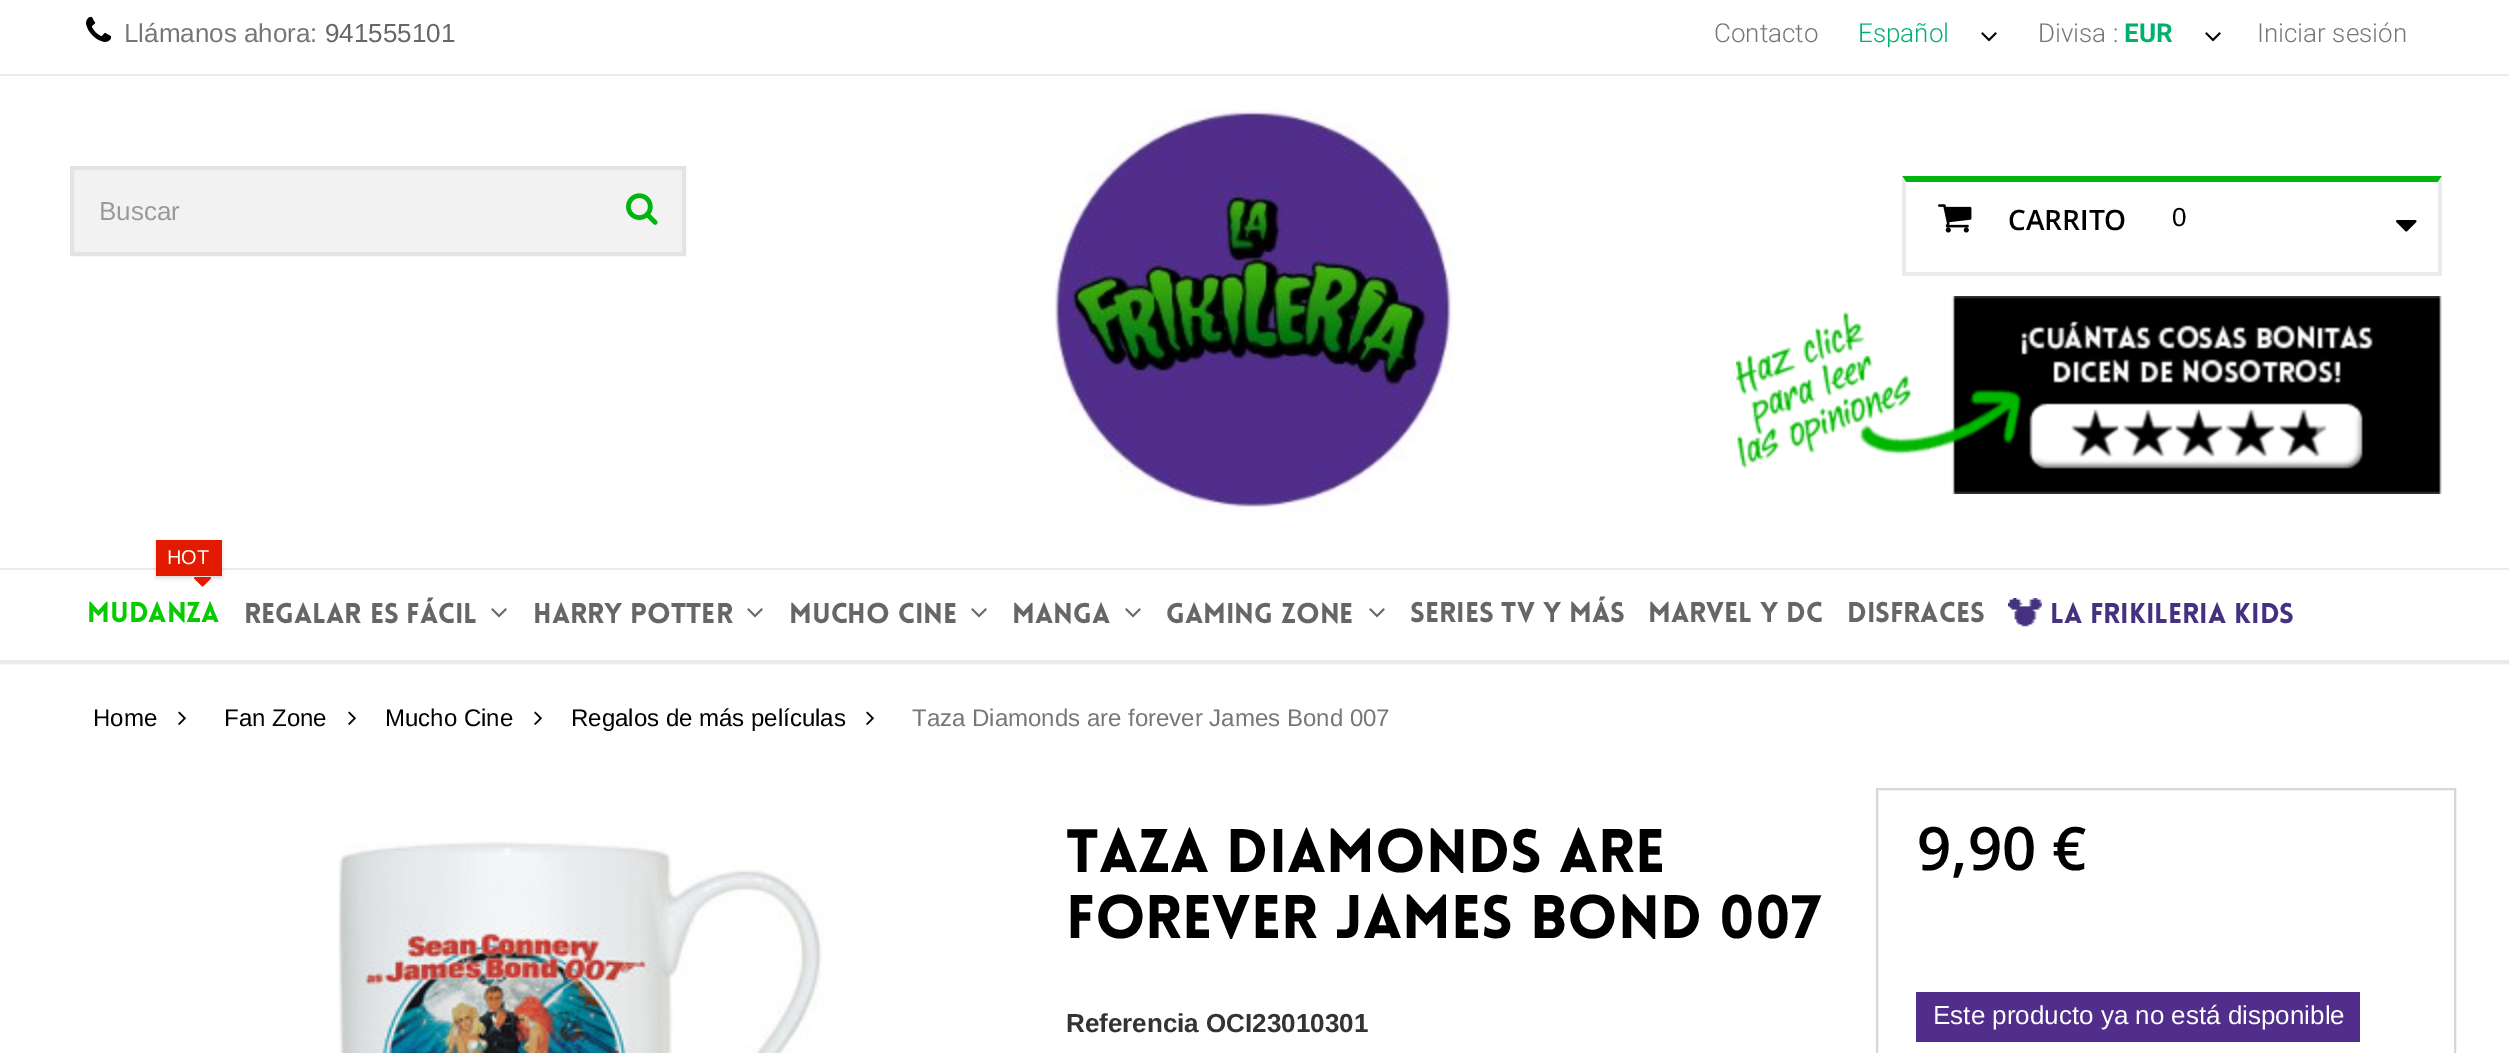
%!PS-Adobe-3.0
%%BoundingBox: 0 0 2509 1053
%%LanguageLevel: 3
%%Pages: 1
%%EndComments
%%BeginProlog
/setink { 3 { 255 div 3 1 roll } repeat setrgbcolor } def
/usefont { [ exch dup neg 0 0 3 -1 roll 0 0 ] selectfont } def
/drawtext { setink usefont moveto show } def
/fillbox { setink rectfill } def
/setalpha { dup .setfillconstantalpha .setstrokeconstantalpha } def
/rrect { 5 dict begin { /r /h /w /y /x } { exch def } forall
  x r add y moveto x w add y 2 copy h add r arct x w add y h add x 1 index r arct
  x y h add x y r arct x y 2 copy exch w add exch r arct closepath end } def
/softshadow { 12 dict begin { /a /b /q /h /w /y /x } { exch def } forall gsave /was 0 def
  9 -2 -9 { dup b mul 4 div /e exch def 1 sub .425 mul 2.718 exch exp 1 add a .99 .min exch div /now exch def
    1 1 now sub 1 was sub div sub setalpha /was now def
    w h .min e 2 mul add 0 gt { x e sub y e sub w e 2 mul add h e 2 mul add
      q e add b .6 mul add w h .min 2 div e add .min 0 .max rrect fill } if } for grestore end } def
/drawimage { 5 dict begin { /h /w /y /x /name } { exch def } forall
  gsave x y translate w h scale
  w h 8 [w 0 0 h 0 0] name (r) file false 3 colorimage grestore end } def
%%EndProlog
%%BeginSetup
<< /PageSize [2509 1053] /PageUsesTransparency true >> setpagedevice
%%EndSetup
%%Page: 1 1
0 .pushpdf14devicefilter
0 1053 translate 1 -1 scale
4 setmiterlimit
0 0 2509 1053 255 255 255 fillbox
gsave
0 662 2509 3 rectclip
0 0 0 setink
0 2 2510 662 0 1 0.1 softshadow
grestore
0 74 2509 2 235 235 235 fillbox
(assets/img1.rgb) 86 16 26 26 drawimage
(Llámanos ahora:) 124 42 /LiberationSans-Regular 26 119 119 119 drawtext
(941555101) 325 42 /LiberationSans-Regular 26 102 102 102 drawtext
(Contacto) 1714 42 /Roboto-Light 26 119 119 119 drawtext
(Español) 1858 42 /Roboto-Light 26 0 176 108 drawtext
(assets/img2.rgb) 1981 32 16 10 drawimage
(Divisa :) 2038 42 /Roboto-Light 26 119 119 119 drawtext
(EUR) 2124 42 /Roboto-Bold 26 0 176 108 drawtext
(assets/img2.rgb) 2205 32 16 10 drawimage
(Iniciar sesión) 2257 42 /Roboto-Light 26 119 119 119 drawtext
242 242 242 setink
72 168 moveto 684 168 lineto 684 254 lineto 72 254 lineto closepath gsave fill grestore
226 227 228 setink
4 setlinewidth
stroke
(Buscar) 99 220 /LiberationSans-Regular 26 153 153 153 drawtext
(assets/img3.rgb) 626 193 32 32 drawimage
(assets/img4.rgb) 1054 108 400 410 drawimage
0 181 13 setink
1902 176 moveto 2442 176 lineto 2438 182 lineto 1906 182 lineto closepath fill
235 235 235 setink
2442 176 moveto 2442 276 lineto 2438 272 lineto 2438 182 lineto closepath fill
1902 272 540 4 235 235 235 fillbox
1902 276 moveto 1902 176 lineto 1906 182 lineto 1906 272 lineto closepath fill
(assets/img5.rgb) 1938 204 34 29 drawimage
(CARRITO) 2008 230 /OpenSans-SemiBold 28 0 0 0 drawtext
(0) 2172 226 /LiberationSans-Regular 26 0 0 0 drawtext
(assets/img6.rgb) 2396 220 21 12 drawimage
(assets/img7.rgb) 1736 296 706 198 drawimage
0 568 2509 2 235 235 235 fillbox
0 660 2509 2 235 235 235 fillbox
0 0 0 setink
156 542 66 36 0 2 0.15 softshadow
156 540 66 36 226 27 0 fillbox
(HOT) 167 564 /LiberationSans-Regular 20 255 255 255 drawtext
(assets/img8.rgb) 194 577 18 10 drawimage
(MUDANZA) 87 622 /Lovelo-Black 28 5 203 0 drawtext
(REGALAR ES FÁCIL) 244 623 /Lovelo-Black 28 102 102 102 drawtext
(assets/img9.rgb) 491 608 16 10 drawimage
(HARRY POTTER) 533 623 /Lovelo-Black 28 102 102 102 drawtext
(assets/img9.rgb) 747 608 16 10 drawimage
(MUCHO CINE) 789 623 /Lovelo-Black 28 102 102 102 drawtext
(assets/img9.rgb) 971 608 16 10 drawimage
(MANGA) 1012 623 /Lovelo-Black 28 102 102 102 drawtext
(assets/img9.rgb) 1125 608 16 10 drawimage
(GAMING ZONE) 1166 623 /Lovelo-Black 28 102 102 102 drawtext
(assets/img9.rgb) 1369 608 16 10 drawimage
(SERIES TV Y MÁS) 1410 622 /Lovelo-Black 28 102 102 102 drawtext
(MARVEL Y DC) 1648 622 /Lovelo-Black 28 102 102 102 drawtext
(DISFRACES) 1847 622 /Lovelo-Black 28 102 102 102 drawtext
(assets/img10.rgb) 2008 598 34 29 drawimage
(LA FRIKILERIA KIDS) 2050 623 /Lovelo-Black 28 68 49 128 drawtext
(Home) 93 726 /LiberationSans-Regular 24 0 0 0 drawtext
(assets/img11.rgb) 178 711 8 14 drawimage
(Fan Zone) 224 726 /LiberationSans-Regular 24 0 0 0 drawtext
(assets/img11.rgb) 348 711 8 14 drawimage
(Mucho Cine) 385 726 /LiberationSans-Regular 24 0 0 0 drawtext
(assets/img11.rgb) 534 711 8 14 drawimage
(Regalos de más películas) 571 726 /LiberationSans-Regular 24 0 0 0 drawtext
(assets/img11.rgb) 866 711 8 14 drawimage
(Taza Diamonds are forever James Bond 007) 912 726 /LiberationSans-Regular 24 119 119 119 drawtext
(assets/img12.rgb) 338 841 487 212 drawimage
(Taza Diamonds are) 1066 872 /Lovelo-Black 60 0 0 0 drawtext
(forever James Bond 007) 1066 938 /Lovelo-Black 60 0 0 0 drawtext
(Referencia OCI23010301) 1066 1032 /LiberationSans-Bold 26 51 51 51 drawtext
211 215 215 setink
2 setlinewidth
1877 789 578 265 rectstroke
(9,90 €) 1917 870 /OpenSans-SemiBold 60 0 0 0 drawtext
1916 992 444 50 81 46 140 fillbox
(Este producto ya no está disponible) 1933 1024 /LiberationSans-Regular 26 255 255 255 drawtext
.poppdf14devicefilter showpage
%%EOF
